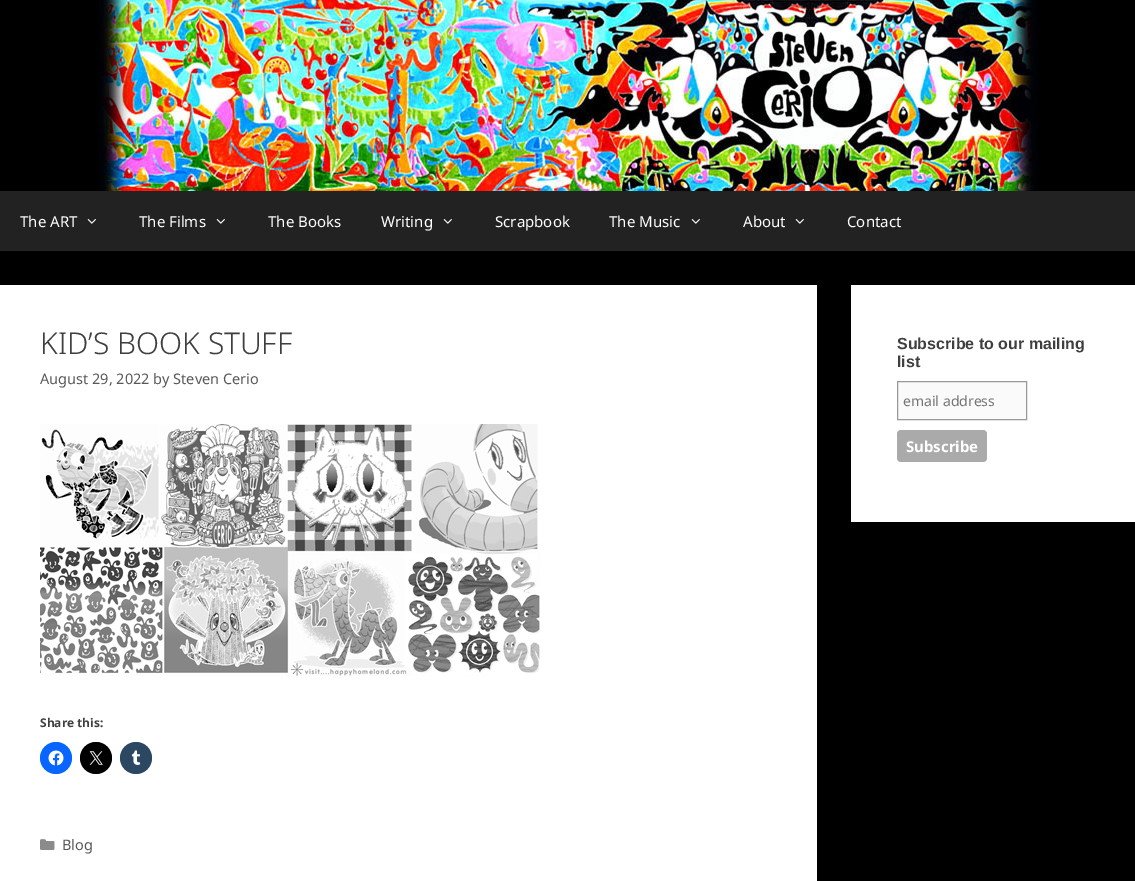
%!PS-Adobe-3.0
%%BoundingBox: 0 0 1135 881
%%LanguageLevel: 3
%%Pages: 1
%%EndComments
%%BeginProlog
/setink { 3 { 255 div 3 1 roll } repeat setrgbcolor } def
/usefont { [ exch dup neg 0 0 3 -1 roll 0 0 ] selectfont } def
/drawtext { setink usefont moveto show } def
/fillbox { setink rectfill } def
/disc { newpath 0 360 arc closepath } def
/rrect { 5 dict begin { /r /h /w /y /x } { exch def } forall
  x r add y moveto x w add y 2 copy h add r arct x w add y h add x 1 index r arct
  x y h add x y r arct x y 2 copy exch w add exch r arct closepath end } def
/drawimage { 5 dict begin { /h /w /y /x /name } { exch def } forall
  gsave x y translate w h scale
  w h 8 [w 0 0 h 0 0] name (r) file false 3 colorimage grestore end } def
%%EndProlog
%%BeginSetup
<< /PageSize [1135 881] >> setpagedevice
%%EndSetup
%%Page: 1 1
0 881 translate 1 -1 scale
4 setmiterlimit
0 0 1135 881 0 0 0 fillbox
(assets/img1.rgb) 98 0 940 191 drawimage
0 191 1135 60 34 34 34 fillbox
(The ART) 20 227 /NotoSans-Regular 15 255 255 255 drawtext
(assets/img2.rgb) 87 219 9 5 drawimage
(The Films) 139 227 /NotoSans-Regular 15 255 255 255 drawtext
(assets/img2.rgb) 216 219 9 5 drawimage
(The Books) 268 227 /NotoSans-Regular 15 255 255 255 drawtext
(Writing) 381 227 /NotoSans-Regular 15 255 255 255 drawtext
(assets/img2.rgb) 443 219 9 5 drawimage
(Scrapbook) 495 227 /NotoSans-Regular 15 255 255 255 drawtext
(The Music) 609 227 /NotoSans-Regular 15 255 255 255 drawtext
(assets/img2.rgb) 691 219 9 5 drawimage
(About) 743 227 /NotoSans-Regular 15 255 255 255 drawtext
(assets/img2.rgb) 795 219 9 5 drawimage
(Contact) 847 227 /NotoSans-Regular 15 255 255 255 drawtext
0 285 817 596 255 255 255 fillbox
(KID’S BOOK STUFF) 40 354 /NotoSans-Light 30 63 63 63 drawtext
(August 29, 2022 by Steven Cerio) 40 384 /NotoSans-Regular 14.5 89 89 89 drawtext
(assets/img3.rgb) 40 424 500 252 drawimage
(Share this:) 40 727 /NotoSans-Bold 12 63 63 63 drawtext
8 102 255 setink
56 758 16 disc fill
(assets/img4.rgb) 48 750 16 16 drawimage
0 0 0 setink
96 758 16 disc fill
(assets/img5.rgb) 89 751 14 14 drawimage
44 71 98 setink
136 758 16 disc fill
(assets/img6.rgb) 131 750 10 15 drawimage
(assets/img7.rgb) 40 839 15 11 drawimage
(Blog) 62 850 /NotoSans-Regular 14.5 89 89 89 drawtext
851 285 284 237 255 255 255 fillbox
(Subscribe to our mailing) 897 349 /LiberationSans-Bold 16 63 63 63 drawtext
(list) 897 367 /LiberationSans-Bold 16 63 63 63 drawtext
250 250 250 setink
897.5 381.5 moveto 1026.5 381.5 lineto 1026.5 419.5 lineto 897.5 419.5 lineto closepath gsave fill grestore
153 153 153 setink
stroke
(email address) 903 406 /NotoSans-Regular 14 117 117 117 drawtext
170 170 170 setink
897 430 90 32 4 rrect fill
(Subscribe) 906 452 /NotoSans-Bold 15 255 255 255 drawtext
showpage
%%EOF
